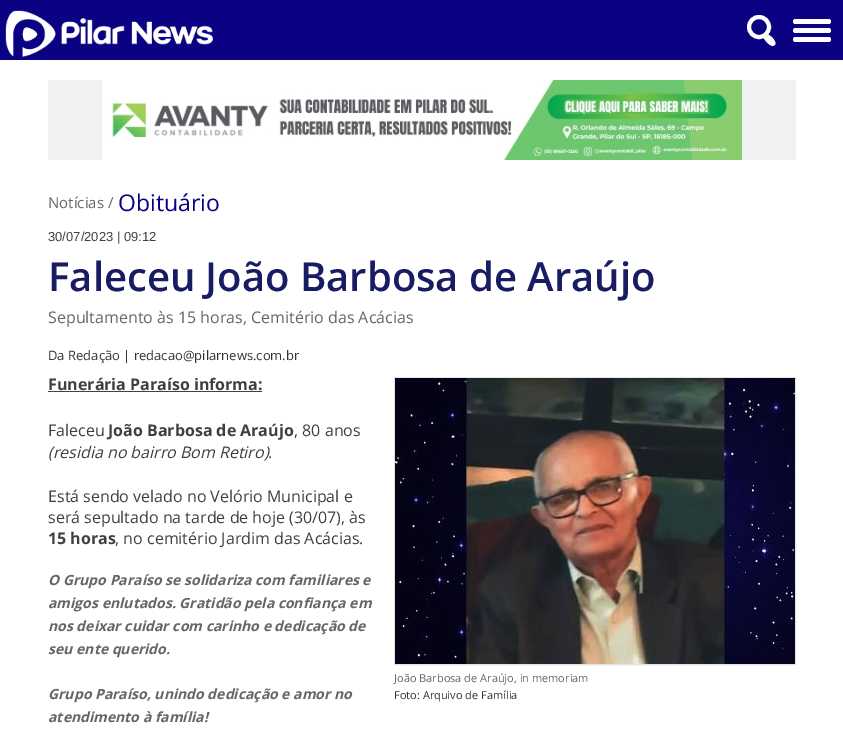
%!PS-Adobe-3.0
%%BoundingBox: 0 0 843 748
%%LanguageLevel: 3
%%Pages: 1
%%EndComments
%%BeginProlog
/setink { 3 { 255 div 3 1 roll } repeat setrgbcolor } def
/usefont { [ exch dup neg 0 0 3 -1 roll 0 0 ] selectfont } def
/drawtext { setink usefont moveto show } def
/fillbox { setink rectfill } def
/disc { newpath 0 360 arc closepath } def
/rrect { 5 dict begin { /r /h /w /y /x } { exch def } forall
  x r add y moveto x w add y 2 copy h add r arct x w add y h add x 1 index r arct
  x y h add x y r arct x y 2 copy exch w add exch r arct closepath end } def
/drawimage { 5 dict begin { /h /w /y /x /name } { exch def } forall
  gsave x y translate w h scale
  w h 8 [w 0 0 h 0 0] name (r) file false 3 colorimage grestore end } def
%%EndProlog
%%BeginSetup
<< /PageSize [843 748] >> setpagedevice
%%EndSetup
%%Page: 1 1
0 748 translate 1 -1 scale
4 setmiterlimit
0 0 843 748 255 255 255 fillbox
0 0 843 60 11 2 131 fillbox
(assets/img1.rgb) 5 10 208 47 drawimage
255 255 255 setink
764 35.5 moveto 764.5 35 765 34 766 34 curveto 769.5 34 775.5 40 775.5 43.5 curveto 775.5 44.5 774.5 45 774 45.5 curveto 771 48 761.5 38 764 35.5 curveto closepath fill
4 setlinewidth
759 27 10 disc stroke
793 19 38 5 2.5 rrect fill
793 28 38 5 2.5 rrect fill
793 37 38 5 2.5 rrect fill
48 80 748 80 241 241 241 fillbox
(assets/img2.rgb) 102 80 640 80 drawimage
(Notícias /) 48 208 /OpenSans-Regular 15 102 102 102 drawtext
(Obituário) 118 211 /OpenSans-Regular 23 11 2 131 drawtext
(30/07/2023 | 09:12) 48 241 /LiberationSans-Regular 13 63 63 65 drawtext
(Faleceu João Barbosa de Araújo) 48 291 /OpenSans-SemiBold 40 23 28 99 drawtext
(Sepultamento às 15 horas, Cemitério das Acácias) 48 323 /OpenSans-Regular 16 102 102 102 drawtext
(Da Redação | redacao@pilarnews.com.br) 48 360 /OpenSans-Regular 13 51 51 51 drawtext
(Funerária Paraíso informa:) 48 390 /OpenSans-Bold 16 63 63 65 drawtext
48 391 214 1 66 66 66 fillbox
(Faleceu) 48 436 /OpenSans-Regular 16 63 63 65 drawtext
(João Barbosa de Araújo) 108 436 /OpenSans-Bold 16 63 63 65 drawtext
(, 80 anos) 294 436 /OpenSans-Regular 16 63 63 65 drawtext
(\(residia no bairro Bom Retiro\)) 48 458 /OpenSans-Italic 16 63 63 65 drawtext
(.) 268 458 /OpenSans-Regular 16 63 63 65 drawtext
(Está sendo velado no Velório Municipal e) 48 502 /OpenSans-Regular 16 63 63 65 drawtext
(será sepultado na tarde de hoje \(30/07\), às) 48 523 /OpenSans-Regular 16 63 63 65 drawtext
(15 horas) 48 544 /OpenSans-Bold 16 63 63 65 drawtext
(, no cemitério Jardim das Acácias.) 115 544 /OpenSans-Regular 16 63 63 65 drawtext
(O Grupo Paraíso se solidariza com familiares e) 48 585 /OpenSans-BoldItalic 14 102 102 102 drawtext
(amigos enlutados. Gratidão pela confiança em) 48 608 /OpenSans-BoldItalic 14 102 102 102 drawtext
(nos deixar cuidar com carinho e dedicação de) 48 631 /OpenSans-BoldItalic 14 102 102 102 drawtext
(seu ente querido.) 48 654 /OpenSans-BoldItalic 14 102 102 102 drawtext
(Grupo Paraíso, unindo dedicação e amor no) 48 699 /OpenSans-BoldItalic 14 102 102 102 drawtext
(atendimento à família!) 48 722 /OpenSans-BoldItalic 14 102 102 102 drawtext
229 229 229 setink
1 setlinewidth
394.5 377.5 401 287 rectstroke
(assets/img3.rgb) 395 378 400 286 drawimage
(João Barbosa de Araújo, in memoriam) 394 682 /OpenSans-Regular 11 102 102 102 drawtext
(Foto: Arquivo de Família) 394 699 /OpenSans-Regular 11 51 51 51 drawtext
showpage
%%EOF
